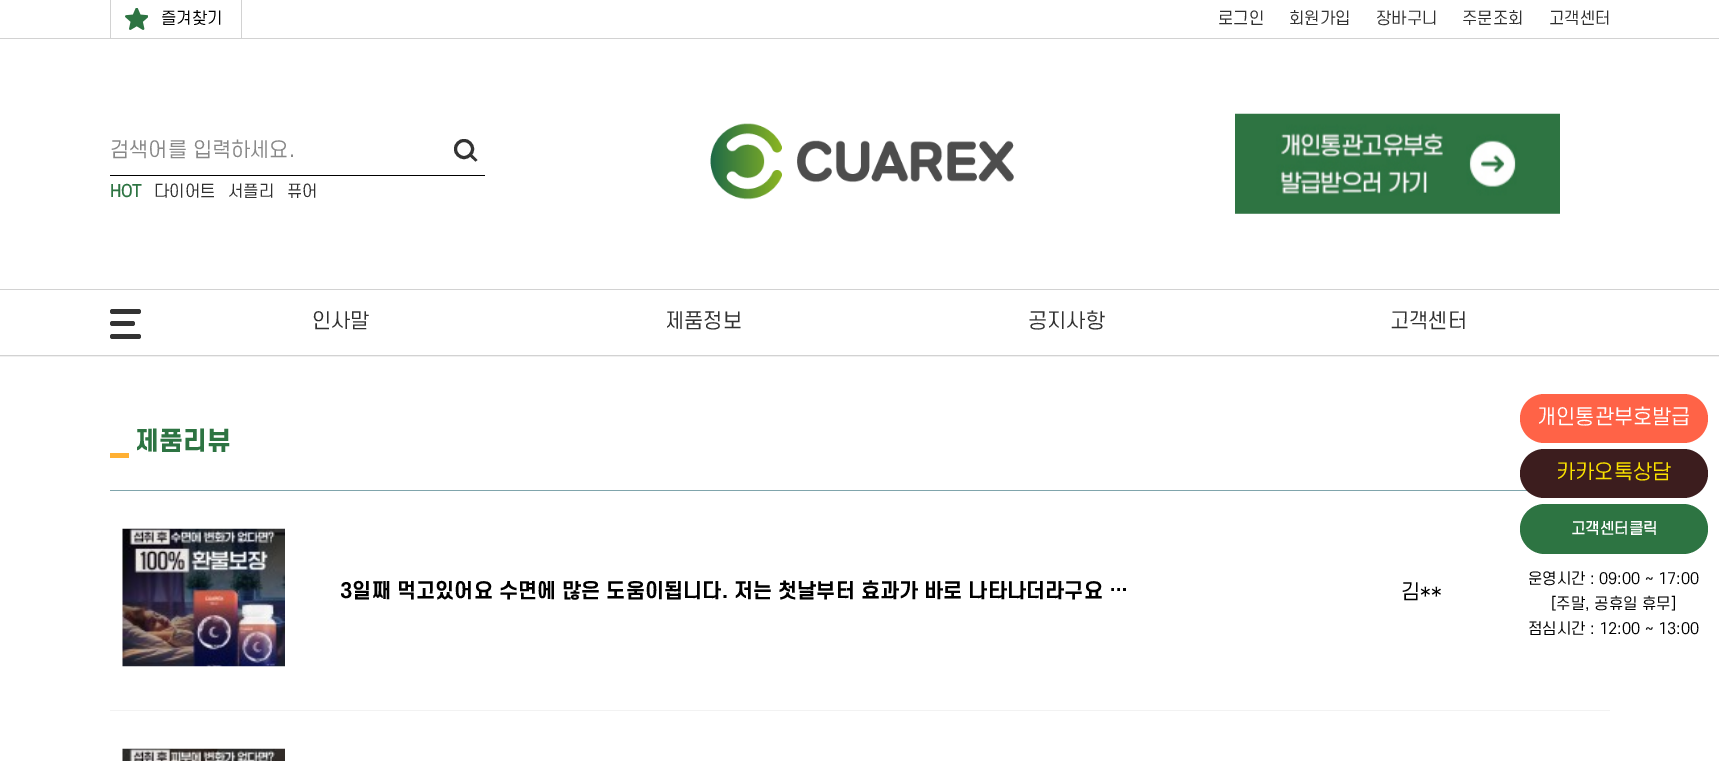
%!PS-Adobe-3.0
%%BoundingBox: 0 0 1719 761
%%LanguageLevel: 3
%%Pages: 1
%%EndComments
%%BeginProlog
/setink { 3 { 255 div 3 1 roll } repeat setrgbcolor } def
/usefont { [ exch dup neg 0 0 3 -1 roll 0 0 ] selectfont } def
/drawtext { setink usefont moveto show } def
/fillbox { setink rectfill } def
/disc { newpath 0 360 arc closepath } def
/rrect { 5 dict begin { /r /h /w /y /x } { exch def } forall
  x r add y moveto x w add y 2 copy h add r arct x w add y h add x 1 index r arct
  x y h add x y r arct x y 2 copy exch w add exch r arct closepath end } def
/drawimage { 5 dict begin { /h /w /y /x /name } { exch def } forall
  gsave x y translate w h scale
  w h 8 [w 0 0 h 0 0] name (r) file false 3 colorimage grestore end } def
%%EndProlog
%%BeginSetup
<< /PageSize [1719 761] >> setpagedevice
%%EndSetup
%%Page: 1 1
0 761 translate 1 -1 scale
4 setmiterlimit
0 0 1719 761 255 255 255 fillbox
0 38 1719 1 210 210 210 fillbox
241 0 1 38 210 210 210 fillbox
110 0 1 38 210 210 210 fillbox
(assets/img1.rgb) 125 8 23 22 drawimage
(즐겨찾기) 161 24 /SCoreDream-Regular 16 0 0 0 drawtext
(로그인) 1218 24 /SCoreDream-Regular 16 49 49 49 drawtext
(회원가입) 1289 24 /SCoreDream-Regular 16 49 49 49 drawtext
(장바구니) 1376 24 /SCoreDream-Regular 16 49 49 49 drawtext
(주문조회) 1462 24 /SCoreDream-Regular 16 49 49 49 drawtext
(고객센터) 1549 24 /SCoreDream-Regular 16 49 49 49 drawtext
0 289 1719 1 210 210 210 fillbox
110 175 375 1 0 0 0 fillbox
(검색어를 입력하세요.) 110 157 /SCoreDream-Regular 20 136 136 136 drawtext
51 51 51 setink
3 setlinewidth
464 149 8.5 disc stroke
470 156.5 moveto 472 154.5 lineto 477.5 160 lineto 475.5 161.5 lineto closepath fill
(HOT) 110 197 /SCoreDream-Bold 16 45 116 66 drawtext
(다이어트) 154 197 /SCoreDream-Regular 16 49 49 49 drawtext
(서플리) 228 197 /SCoreDream-Regular 16 49 49 49 drawtext
(퓨어) 287 197 /SCoreDream-Regular 16 49 49 49 drawtext
(assets/img2.rgb) 710 123 304 77 drawimage
(assets/img3.rgb) 1235 113 325 101 drawimage
0 355 1719 1 210 210 210 fillbox
51 51 51 setink
110 309 31 5 2.5 rrect fill
110 321 25 5 2.5 rrect fill
110 334 31 5 2.5 rrect fill
(인사말) 312 328 /SCoreDream-Regular 20 49 49 49 drawtext
(제품정보) 665 328 /SCoreDream-Regular 20 49 49 49 drawtext
(공지사항) 1028 328 /SCoreDream-Regular 20 49 49 49 drawtext
(고객센터) 1390 328 /SCoreDream-Regular 20 49 49 49 drawtext
0 356 1719 1 240 240 240 fillbox
110 490 1418 1 128 165 172 fillbox
(제품리뷰) 135 450 /SCoreDream-ExtraBold 25 45 116 66 drawtext
110 453 19 5 255 176 51 fillbox
110 710 1500 1 242 242 242 fillbox
(assets/img4.rgb) 122 528 163 139 drawimage
(3일째 먹고있어요 수면에 많은 도움이됩니다. 저는 첫날부터 효과가 바로 나타나더라구요 …) 340 598 /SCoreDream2-Bold 20 0 0 0 drawtext
(김**) 1401 599 /SCoreDream-Regular 20 0 0 0 drawtext
(assets/img5.rgb) 122 748 163 13 drawimage
255 99 71 setink
1520 394 188 49 24.5 rrect fill
(개인통관부호발급) 1537 424 /SCoreDream-Regular 20 255 255 255 drawtext
60 29 30 setink
1520 449 188 49 24.5 rrect fill
(카카오톡상담) 1556 479 /SCoreDream-Regular 20 250 225 0 drawtext
45 116 66 setink
1520 504 188 50 25 rrect fill
(고객센터클릭) 1571 534 /SCoreDream-Bold 15 255 255 255 drawtext
(운영시간 : 09:00 ~ 17:00) 1528 584 /SCoreDream-Regular 15 0 0 0 drawtext
([주말, 공휴일 휴무]) 1551 609 /SCoreDream-Regular 15 0 0 0 drawtext
(점심시간 : 12:00 ~ 13:00) 1528 634 /SCoreDream-Regular 15 0 0 0 drawtext
showpage
%%EOF
